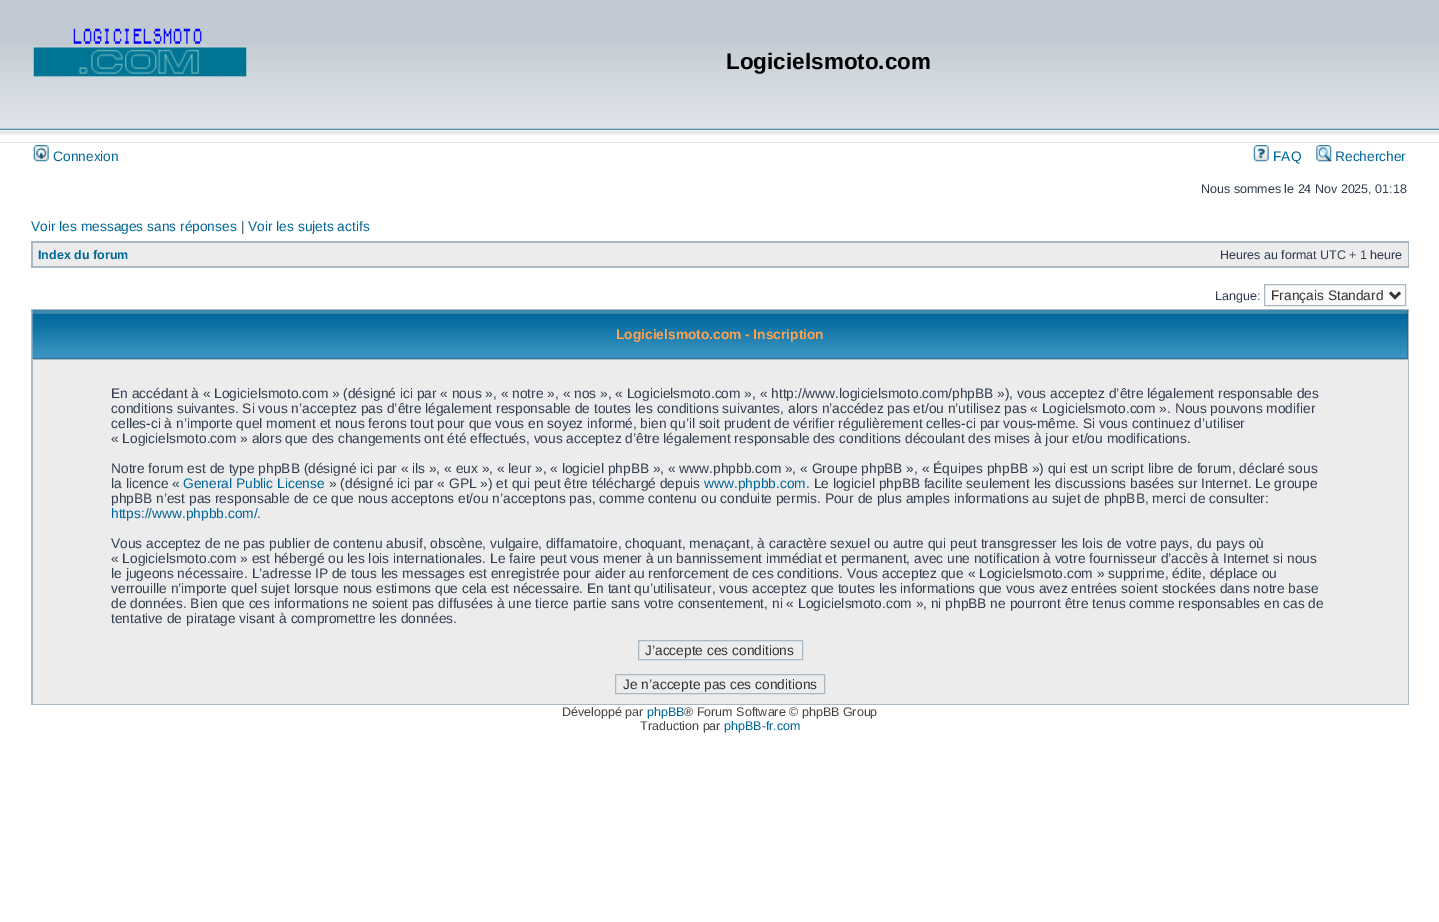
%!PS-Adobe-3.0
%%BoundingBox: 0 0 1439 922
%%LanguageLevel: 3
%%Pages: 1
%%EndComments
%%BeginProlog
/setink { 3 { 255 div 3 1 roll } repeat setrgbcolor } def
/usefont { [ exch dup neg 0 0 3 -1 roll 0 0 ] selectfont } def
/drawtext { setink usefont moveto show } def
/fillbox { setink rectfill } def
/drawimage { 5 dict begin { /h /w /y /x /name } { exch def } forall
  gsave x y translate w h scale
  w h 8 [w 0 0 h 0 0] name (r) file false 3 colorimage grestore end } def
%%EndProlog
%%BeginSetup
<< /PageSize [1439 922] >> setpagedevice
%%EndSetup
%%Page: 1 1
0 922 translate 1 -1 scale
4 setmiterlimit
0 0 1439 922 255 255 255 fillbox
0 0 1439 143 193 202 210 fillbox
(assets/img1.rgb) 0 45 1439 98 drawimage
(assets/img2.rgb) 33 28 214 49 drawimage
(Logicielsmoto.com) 726 69 /LiberationSans-Bold 22.5 0 0 0 drawtext
(assets/img3.rgb) 33 145 16 17 drawimage
(Connexion) 53 161 /LiberationSans-Regular 13.75 0 101 151 drawtext
(assets/img4.rgb) 1253 145 16 17 drawimage
(FAQ) 1273 161 /LiberationSans-Regular 13.75 0 101 151 drawtext
(assets/img5.rgb) 1316 145 16 17 drawimage
(Rechercher) 1335 161 /LiberationSans-Regular 13.75 0 101 151 drawtext
(Nous sommes le 24 Nov 2025, 01:18) 1201 193 /LiberationSans-Regular 12.5 50 61 79 drawtext
(Voir les messages sans réponses) 31 231 /LiberationSans-Regular 13.75 0 101 151 drawtext
(|) 241 231 /LiberationSans-Regular 13.75 50 61 79 drawtext
(Voir les sujets actifs) 248 231 /LiberationSans-Regular 13.75 0 101 151 drawtext
31 241 1378 27 169 184 194 fillbox
33 243 1375 23 236 236 236 fillbox
(Index du forum) 38 259 /LiberationSans-Bold 12.5 0 101 151 drawtext
(Heures au format UTC + 1 heure) 1220 259 /LiberationSans-Regular 12.5 50 61 79 drawtext
(Langue:) 1215 300 /LiberationSans-Regular 12.5 50 61 79 drawtext
250 250 250 setink
1264.5 284.5 moveto 1405.5 284.5 lineto 1405.5 305.5 lineto 1264.5 305.5 lineto closepath gsave fill grestore
169 184 194 setink
stroke
51 51 51 setink
2.5 setlinewidth
1390 292.5 moveto 1395 297.5 lineto 1400 292.5 lineto stroke
(Français Standard) 1271 300 /LiberationSans-Regular 13.75 51 51 51 drawtext
31 309 1378 396 169 184 194 fillbox
33 310 1375 49 0 102 153 fillbox
(assets/img6.rgb) 32 310 1376 49 drawimage
(Logicielsmoto.com - Inscription) 616 339 /LiberationSans-Bold 13.75 255 163 79 drawtext
33 360 1375 344 236 236 236 fillbox
(En accédant à « Logicielsmoto.com » \(désigné ici par « nous », « notre », « nos », « Logicielsmoto.com », « http://www.logicielsmoto.com/phpBB »\), vous acceptez d’être légalement responsable des) 111 398 /LiberationSans-Regular 13.75 50 61 79 drawtext
(conditions suivantes. Si vous n’acceptez pas d’être légalement responsable de toutes les conditions suivantes, alors n’accédez pas et/ou n’utilisez pas « Logicielsmoto.com ». Nous pouvons modifier) 111 413 /LiberationSans-Regular 13.75 50 61 79 drawtext
(celles-ci à n’importe quel moment et nous ferons tout pour que vous en soyez informé, bien qu’il soit prudent de vérifier régulièrement celles-ci par vous-même. Si vous continuez d’utiliser) 111 428 /LiberationSans-Regular 13.75 50 61 79 drawtext
(« Logicielsmoto.com » alors que des changements ont été effectués, vous acceptez d’être légalement responsable des conditions découlant des mises à jour et/ou modifications.) 111 443 /LiberationSans-Regular 13.75 50 61 79 drawtext
(Notre forum est de type phpBB \(désigné ici par « ils », « eux », « leur », « logiciel phpBB », « www.phpbb.com », « Groupe phpBB », « Équipes phpBB »\) qui est un script libre de forum, déclaré sous) 111 473 /LiberationSans-Regular 13.75 50 61 79 drawtext
(la licence «) 111 488 /LiberationSans-Regular 13.75 50 61 79 drawtext
(General Public License) 183 488 /LiberationSans-Regular 13.75 0 101 151 drawtext
(» \(désigné ici par « GPL »\) et qui peut être téléchargé depuis) 329 488 /LiberationSans-Regular 13.75 50 61 79 drawtext
(www.phpbb.com) 704 488 /LiberationSans-Regular 13.75 0 101 151 drawtext
(. Le logiciel phpBB facilite seulement les discussions basées sur Internet. Le groupe) 806 488 /LiberationSans-Regular 13.75 50 61 79 drawtext
(phpBB n’est pas responsable de ce que nous acceptons et/ou n’acceptons pas, comme contenu ou conduite permis. Pour de plus amples informations au sujet de phpBB, merci de consulter:) 111 503 /LiberationSans-Regular 13.75 50 61 79 drawtext
(https://www.phpbb.com/) 111 518 /LiberationSans-Regular 13.75 0 101 151 drawtext
(.) 257 518 /LiberationSans-Regular 13.75 50 61 79 drawtext
(Vous acceptez de ne pas publier de contenu abusif, obscène, vulgaire, diffamatoire, choquant, menaçant, à caractère sexuel ou autre qui peut transgresser les lois de votre pays, du pays où) 111 548 /LiberationSans-Regular 13.75 50 61 79 drawtext
(« Logicielsmoto.com » est hébergé ou les lois internationales. Le faire peut vous mener à un bannissement immédiat et permanent, avec une notification à votre fournisseur d’accès à Internet si nous) 111 563 /LiberationSans-Regular 13.75 50 61 79 drawtext
(le jugeons nécessaire. L’adresse IP de tous les messages est enregistrée pour aider au renforcement de ces conditions. Vous acceptez que « Logicielsmoto.com » supprime, édite, déplace ou) 111 578 /LiberationSans-Regular 13.75 50 61 79 drawtext
(verrouille n’importe quel sujet lorsque nous estimons que cela est nécessaire. En tant qu’utilisateur, vous acceptez que toutes les informations que vous avez entrées soient stockées dans notre base) 111 593 /LiberationSans-Regular 13.75 50 61 79 drawtext
(de données. Bien que ces informations ne soient pas diffusées à une tierce partie sans votre consentement, ni « Logicielsmoto.com », ni phpBB ne pourront être tenus comme responsables en cas de) 111 608 /LiberationSans-Regular 13.75 50 61 79 drawtext
(tentative de piratage visant à compromettre les données.) 111 623 /LiberationSans-Regular 13.75 50 61 79 drawtext
169 184 194 setink
1 setlinewidth
638.5 640.5 164 19 rectstroke
(J’accepte ces conditions) 645 655 /LiberationSans-Regular 13.75 51 51 51 drawtext
169 184 194 setink
615.5 674.5 209 19 rectstroke
(Je n’accepte pas ces conditions) 623 689 /LiberationSans-Regular 13.75 51 51 51 drawtext
(Développé par) 562 716 /LiberationSans-Regular 12.5 68 68 68 drawtext
(phpBB) 647 716 /LiberationSans-Regular 12.5 0 101 151 drawtext
(® Forum Software © phpBB Group) 684 716 /LiberationSans-Regular 12.5 68 68 68 drawtext
(Traduction par) 640 730 /LiberationSans-Regular 12.5 68 68 68 drawtext
(phpBB-fr.com) 724 730 /LiberationSans-Regular 12.5 0 101 151 drawtext
showpage
%%EOF
